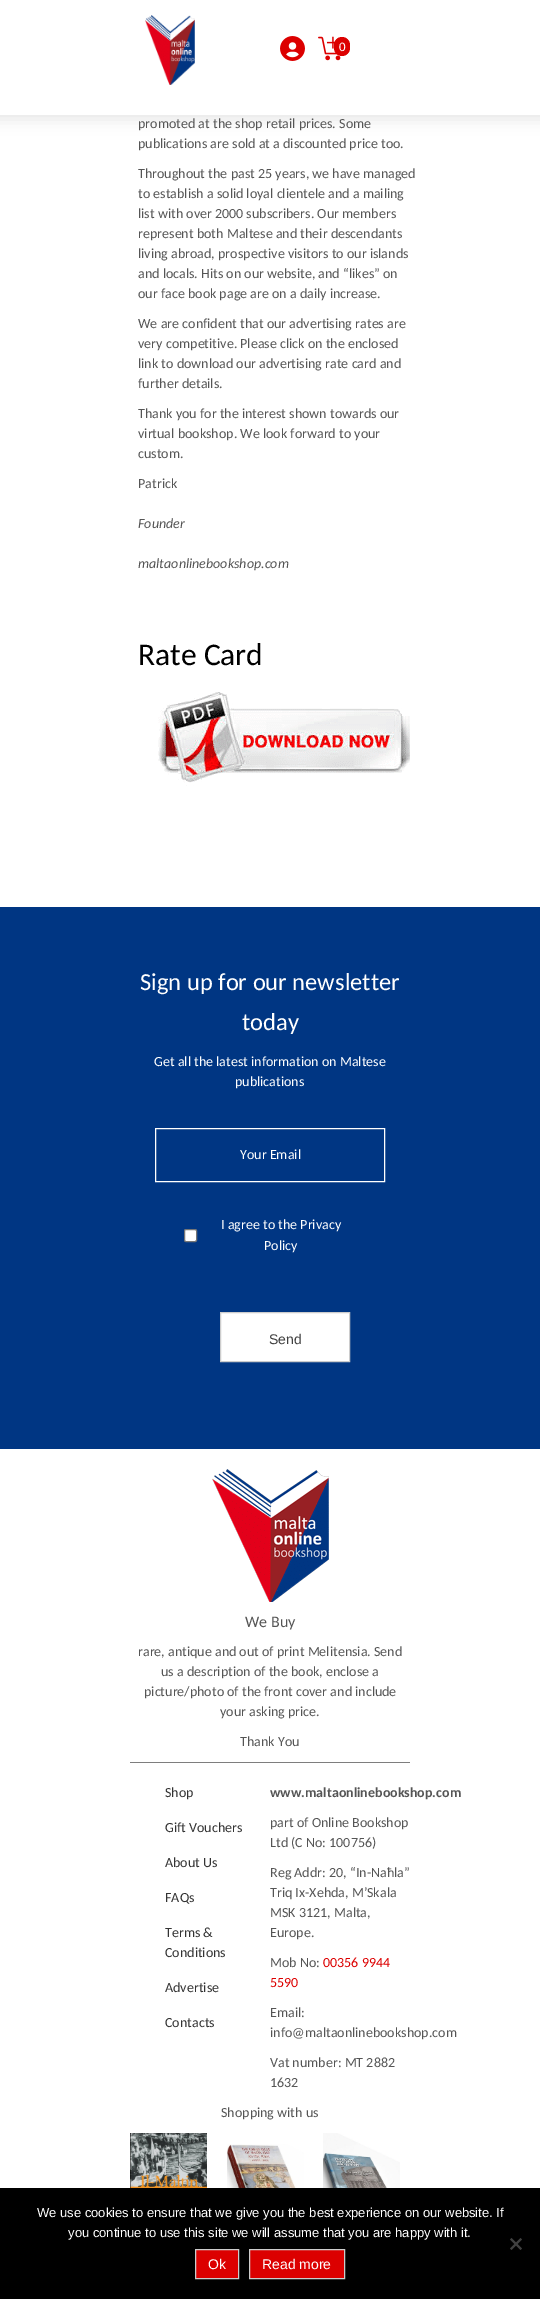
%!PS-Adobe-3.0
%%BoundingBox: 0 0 540 2299
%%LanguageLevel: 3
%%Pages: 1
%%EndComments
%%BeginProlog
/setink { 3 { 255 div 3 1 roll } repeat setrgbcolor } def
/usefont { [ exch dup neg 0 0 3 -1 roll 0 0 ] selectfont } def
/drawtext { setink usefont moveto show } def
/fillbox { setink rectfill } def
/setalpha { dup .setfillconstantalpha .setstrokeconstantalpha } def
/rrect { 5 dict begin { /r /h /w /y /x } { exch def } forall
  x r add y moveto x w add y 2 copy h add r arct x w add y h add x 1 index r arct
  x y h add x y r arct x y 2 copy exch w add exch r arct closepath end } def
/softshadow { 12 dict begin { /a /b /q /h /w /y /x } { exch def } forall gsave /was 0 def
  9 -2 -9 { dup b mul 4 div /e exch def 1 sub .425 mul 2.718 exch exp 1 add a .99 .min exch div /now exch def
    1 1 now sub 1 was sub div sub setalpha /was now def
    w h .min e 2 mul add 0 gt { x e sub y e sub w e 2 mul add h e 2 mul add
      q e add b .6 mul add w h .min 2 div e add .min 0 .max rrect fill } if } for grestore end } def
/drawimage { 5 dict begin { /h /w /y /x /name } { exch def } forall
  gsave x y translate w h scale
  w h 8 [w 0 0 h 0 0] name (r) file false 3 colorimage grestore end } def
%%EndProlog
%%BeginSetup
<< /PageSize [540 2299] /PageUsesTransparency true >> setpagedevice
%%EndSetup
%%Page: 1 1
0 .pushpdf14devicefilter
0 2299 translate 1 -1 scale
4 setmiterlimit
0 0 540 2299 255 255 255 fillbox
0 0 0 setink
-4 -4 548 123 0 7.5 0.1 softshadow
0 0 540 115 255 255 255 fillbox
(assets/img1.rgb) 145 15 50 70 drawimage
(assets/img2.rgb) 280 36 25 25 drawimage
(assets/img3.rgb) 318 36 23 25 drawimage
220 0 0 setink
334 37 16 19 8 rrect fill
(0) 339 51 /Carlito-Regular 13 255 255 255 drawtext
(promoted at the shop retail prices. Some) 138 128 /Carlito-Regular 14 85 85 85 drawtext
(publications are sold at a discounted price too.) 138 148 /Carlito-Regular 14 85 85 85 drawtext
(Throughout the past 25 years, we have managed) 138 178 /Carlito-Regular 14 85 85 85 drawtext
(to establish a solid loyal clientele and a mailing) 138 198 /Carlito-Regular 14 85 85 85 drawtext
(list with over 2000 subscribers. Our members) 138 218 /Carlito-Regular 14 85 85 85 drawtext
(represent both Maltese and their descendants) 138 238 /Carlito-Regular 14 85 85 85 drawtext
(living abroad, prospective visitors to our islands) 138 258 /Carlito-Regular 14 85 85 85 drawtext
(and locals. Hits on our website, and “likes” on) 138 278 /Carlito-Regular 14 85 85 85 drawtext
(our face book page are on a daily increase.) 138 298 /Carlito-Regular 14 85 85 85 drawtext
(We are confident that our advertising rates are) 138 328 /Carlito-Regular 14 85 85 85 drawtext
(very competitive. Please click on the enclosed) 138 348 /Carlito-Regular 14 85 85 85 drawtext
(link to download our advertising rate card and) 138 368 /Carlito-Regular 14 85 85 85 drawtext
(further details.) 138 388 /Carlito-Regular 14 85 85 85 drawtext
(Thank you for the interest shown towards our) 138 418 /Carlito-Regular 14 85 85 85 drawtext
(virtual bookshop. We look forward to your) 138 438 /Carlito-Regular 14 85 85 85 drawtext
(custom.) 138 458 /Carlito-Regular 14 85 85 85 drawtext
(Patrick) 138 488 /Carlito-Regular 14 85 85 85 drawtext
(Founder) 138 528 /Carlito-Italic 14 85 85 85 drawtext
(maltaonlinebookshop.com) 138 568 /Carlito-Italic 14 85 85 85 drawtext
(Rate Card) 138 665 /Carlito-Regular 31.5 0 0 0 drawtext
(assets/img4.rgb) 158 692 252 94 drawimage
0 907 540 542 0 54 131 fillbox
(Sign up for our newsletter) 140 990 /Carlito-Regular 24.5 255 255 255 drawtext
(today) 242 1030 /Carlito-Regular 24.5 255 255 255 drawtext
(Get all the latest information on Maltese) 154 1066 /Carlito-Regular 14 255 255 255 drawtext
(publications) 235 1086 /Carlito-Regular 14 255 255 255 drawtext
156 1129 228 1 0 50 121 fillbox
255 255 255 setink
155.5 1128.5 229 53 rectstroke
(Your Email) 240 1159 /Carlito-Regular 14 255 255 255 drawtext
184.5 1229.5 12 12 1.5 rrect gsave fill grestore
118 118 118 setink
stroke
(I agree to the Privacy) 221 1229 /Carlito-Regular 14 255 255 255 drawtext
(Policy) 264 1250 /Carlito-Regular 14 255 255 255 drawtext
220.5 1312.5 moveto 349.5 1312.5 lineto 349.5 1361.5 lineto 220.5 1361.5 lineto closepath gsave fill grestore
204 204 204 setink
stroke
(Send) 269 1344 /LiberationSans-Regular 14 64 64 64 drawtext
130 1762 280 1 126 126 126 fillbox
(assets/img5.rgb) 212 1469 117 133 drawimage
(We Buy) 245 1627 /Carlito-Regular 16 85 85 85 drawtext
(rare, antique and out of print Melitensia. Send) 138 1656 /Carlito-Regular 14 85 85 85 drawtext
(us a description of the book, enclose a) 161 1676 /Carlito-Regular 14 85 85 85 drawtext
(picture/photo of the front cover and include) 144 1696 /Carlito-Regular 14 85 85 85 drawtext
(your asking price.) 220 1716 /Carlito-Regular 14 85 85 85 drawtext
(Thank You) 240 1746 /Carlito-Regular 14 85 85 85 drawtext
(Shop) 165 1797 /Carlito-Regular 14 51 51 51 drawtext
(Gift Vouchers) 165 1832 /Carlito-Regular 14 51 51 51 drawtext
(About Us) 165 1867 /Carlito-Regular 14 51 51 51 drawtext
(FAQs) 165 1902 /Carlito-Regular 14 51 51 51 drawtext
(Terms &) 165 1937 /Carlito-Regular 14 51 51 51 drawtext
(Conditions) 165 1957 /Carlito-Regular 14 51 51 51 drawtext
(Advertise) 165 1992 /Carlito-Regular 14 51 51 51 drawtext
(Contacts) 165 2027 /Carlito-Regular 14 51 51 51 drawtext
(www.maltaonlinebookshop.com) 270 1797 /Carlito-Bold 14 85 85 85 drawtext
(part of Online Bookshop) 270 1827 /Carlito-Regular 14 85 85 85 drawtext
(Ltd \(C No: 100756\)) 270 1847 /Carlito-Regular 14 85 85 85 drawtext
(Reg Addr: 20, “In-Naħla”) 270 1877 /Carlito-Regular 14 85 85 85 drawtext
(Triq Ix-Xehda, M’Skala) 270 1897 /Carlito-Regular 14 85 85 85 drawtext
(MSK 3121, Malta,) 270 1917 /Carlito-Regular 14 85 85 85 drawtext
(Europe.) 270 1937 /Carlito-Regular 14 85 85 85 drawtext
(Mob No:) 270 1967 /Carlito-Regular 14 85 85 85 drawtext
(00356 9944) 323 1967 /Carlito-Regular 14 220 0 0 drawtext
(5590) 270 1987 /Carlito-Regular 14 220 0 0 drawtext
(Email:) 270 2017 /Carlito-Regular 14 85 85 85 drawtext
(info@maltaonlinebookshop.com) 270 2037 /Carlito-Regular 14 85 85 85 drawtext
(Vat number: MT 2882) 270 2067 /Carlito-Regular 14 85 85 85 drawtext
(1632) 270 2087 /Carlito-Regular 14 85 85 85 drawtext
(Shopping with us) 221 2117 /Carlito-Regular 14 85 85 85 drawtext
(assets/img6.rgb) 130 2133 77 55 drawimage
(assets/img7.rgb) 227 2144 77 44 drawimage
(assets/img8.rgb) 323 2133 77 55 drawimage
0 2188 540 111 0 0 0 fillbox
(We use cookies to ensure that we give you the best experience on our website. If) 37 2217 /LiberationSans-Regular 13 255 255 255 drawtext
(you continue to use this site we will assume that you are happy with it.) 68 2237 /LiberationSans-Regular 13 255 255 255 drawtext
64 64 64 setink
520.5 2238 moveto 522 2239.5 lineto 511.5 2250 lineto 510 2248.5 lineto closepath fill
510 2239.5 moveto 511.5 2238 lineto 522 2248.5 lineto 520.5 2250 lineto closepath fill
220 0 0 setink
195.5 2249.5 moveto 238.5 2249.5 lineto 238.5 2278.5 lineto 195.5 2278.5 lineto closepath gsave fill grestore
204 204 204 setink
stroke
(Ok) 208 2269 /LiberationSans-Regular 14 255 255 255 drawtext
220 0 0 setink
249.5 2249.5 moveto 344.5 2249.5 lineto 344.5 2278.5 lineto 249.5 2278.5 lineto closepath gsave fill grestore
204 204 204 setink
stroke
(Read more) 262 2269 /LiberationSans-Regular 14 255 255 255 drawtext
.poppdf14devicefilter showpage
%%EOF
